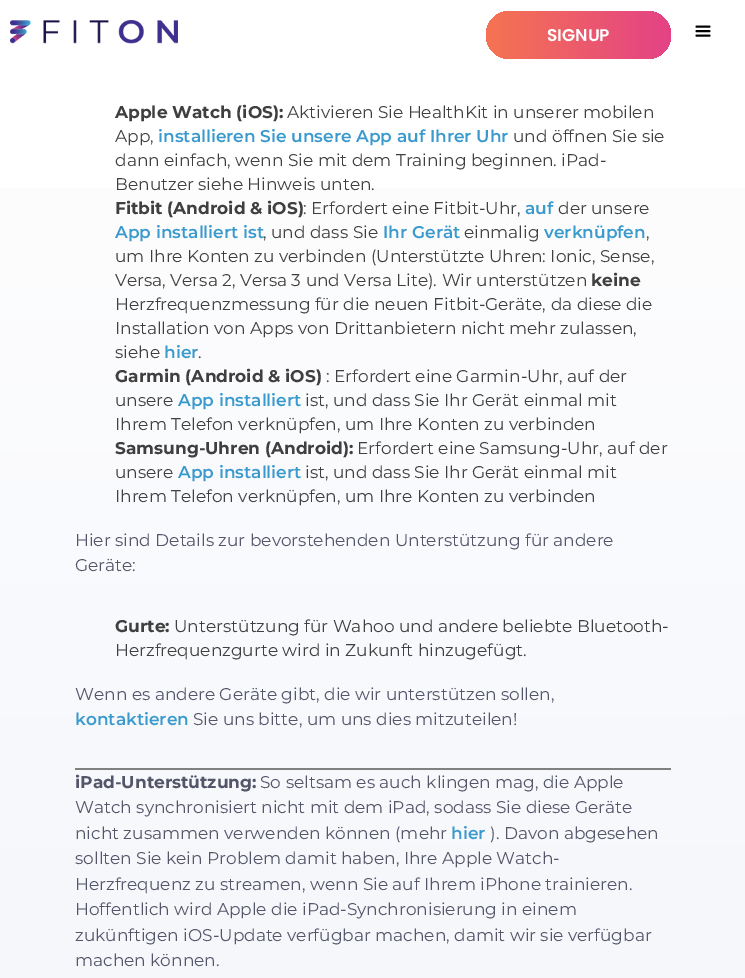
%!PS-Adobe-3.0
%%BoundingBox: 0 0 745 978
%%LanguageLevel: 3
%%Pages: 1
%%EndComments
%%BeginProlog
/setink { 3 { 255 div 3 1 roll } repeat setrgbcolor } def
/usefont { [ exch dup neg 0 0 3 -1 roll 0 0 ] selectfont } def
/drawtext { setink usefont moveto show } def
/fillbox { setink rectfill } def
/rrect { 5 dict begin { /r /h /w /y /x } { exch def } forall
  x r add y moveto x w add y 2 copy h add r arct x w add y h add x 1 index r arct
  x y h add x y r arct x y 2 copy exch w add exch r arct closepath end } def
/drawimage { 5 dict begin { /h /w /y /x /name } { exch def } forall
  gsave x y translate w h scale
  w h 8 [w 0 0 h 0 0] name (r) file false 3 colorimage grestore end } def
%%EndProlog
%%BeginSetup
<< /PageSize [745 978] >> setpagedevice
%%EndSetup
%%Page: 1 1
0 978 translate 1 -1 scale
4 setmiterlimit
0 0 745 978 255 255 255 fillbox
(assets/img1.rgb) 10 20 168 24 drawimage
gsave 486 11 185 48 24 rrect clip newpath
<< /ShadingType 2 /ColorSpace /DeviceRGB /Coords [717 35 486 35] /Extend [true true] /Function << /FunctionType 3 /Domain [0 1] /Functions [<< /FunctionType 2 /Domain [0 1] /C0 [0.878 0.212 0.58] /C1 [0.957 0.447 0.325] /N 1 >> << /FunctionType 2 /Domain [0 1] /C0 [0.957 0.447 0.325] /C1 [0.957 0.447 0.325] /N 1 >>] /Bounds [0.96] /Encode [0 1 0 1] >> >> shfill grestore
(SIGNUP) 547 41 /Poppins-SemiBold 17 255 255 255 drawtext
(assets/img2.rgb) 695 25 16 12 drawimage
gsave 0 188 moveto 745 188 lineto 745 978 lineto 0 978 lineto closepath clip newpath
<< /ShadingType 2 /ColorSpace /DeviceRGB /Coords [372 -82 373 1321] /Extend [true true] /Function << /FunctionType 2 /Domain [0 1] /C0 [1 1 1] /C1 [0.949 0.961 0.98] /N 1 >> >> shfill grestore
(Apple Watch \(iOS\):) 115 118 /Montserrat-Bold 17 63 63 63 drawtext
(Aktivieren Sie HealthKit in unserer mobilen) 287 118 /Montserrat-Regular 17 63 63 63 drawtext
(App,) 115 142 /Montserrat-Regular 17 63 63 63 drawtext
(installieren Sie unsere App auf Ihrer Uhr) 158 142 /Montserrat-SemiBold 17 58 154 205 drawtext
(und öffnen Sie sie) 513 142 /Montserrat-Regular 17 63 63 63 drawtext
(dann einfach, wenn Sie mit dem Training beginnen. iPad-) 115 166 /Montserrat-Regular 17 63 63 63 drawtext
(Benutzer siehe Hinweis unten.) 115 190 /Montserrat-Regular 17 63 63 63 drawtext
(Fitbit \(Android & iOS\)) 115 214 /Montserrat-Bold 17 63 63 63 drawtext
(: Erfordert eine Fitbit-Uhr,) 303 214 /Montserrat-Regular 17 63 63 63 drawtext
(auf) 525 214 /Montserrat-SemiBold 17 58 154 205 drawtext
(der unsere) 558 214 /Montserrat-Regular 17 63 63 63 drawtext
(App installiert ist) 115 238 /Montserrat-SemiBold 17 58 154 205 drawtext
(, und dass Sie) 263 238 /Montserrat-Regular 17 63 63 63 drawtext
(Ihr Gerät) 383 238 /Montserrat-SemiBold 17 58 154 205 drawtext
(einmalig) 464 238 /Montserrat-Regular 17 63 63 63 drawtext
(verknüpfen) 544 238 /Montserrat-SemiBold 17 58 154 205 drawtext
(,) 646 238 /Montserrat-Regular 17 63 63 63 drawtext
(um Ihre Konten zu verbinden \(Unterstützte Uhren: Ionic, Sense,) 115 262 /Montserrat-Regular 17 63 63 63 drawtext
(Versa, Versa 2, Versa 3 und Versa Lite\). Wir unterstützen) 115 286 /Montserrat-Regular 17 63 63 63 drawtext
(keine) 591 286 /Montserrat-Bold 17 63 63 63 drawtext
(Herzfrequenzmessung für die neuen Fitbit-Geräte, da diese die) 115 310 /Montserrat-Regular 17 63 63 63 drawtext
(Installation von Apps von Drittanbietern nicht mehr zulassen,) 115 334 /Montserrat-Regular 17 63 63 63 drawtext
(siehe) 115 358 /Montserrat-Regular 17 63 63 63 drawtext
(hier) 164 358 /Montserrat-SemiBold 17 58 154 205 drawtext
(.) 198 358 /Montserrat-Regular 17 63 63 63 drawtext
(Garmin \(Android & iOS\)) 115 382 /Montserrat-Bold 17 63 63 63 drawtext
(: Erfordert eine Garmin-Uhr, auf der) 326 382 /Montserrat-Regular 17 63 63 63 drawtext
(unsere) 115 406 /Montserrat-Regular 17 63 63 63 drawtext
(App installiert) 178 406 /Montserrat-SemiBold 17 58 154 205 drawtext
(ist, und dass Sie Ihr Gerät einmal mit) 305 406 /Montserrat-Regular 17 63 63 63 drawtext
(Ihrem Telefon verknüpfen, um Ihre Konten zu verbinden) 115 430 /Montserrat-Regular 17 63 63 63 drawtext
(Samsung-Uhren \(Android\):) 115 454 /Montserrat-Bold 17 63 63 63 drawtext
(Erfordert eine Samsung-Uhr, auf der) 357 454 /Montserrat-Regular 17 63 63 63 drawtext
(unsere) 115 478 /Montserrat-Regular 17 63 63 63 drawtext
(App installiert) 178 478 /Montserrat-SemiBold 17 58 154 205 drawtext
(ist, und dass Sie Ihr Gerät einmal mit) 305 478 /Montserrat-Regular 17 63 63 63 drawtext
(Ihrem Telefon verknüpfen, um Ihre Konten zu verbinden) 115 502 /Montserrat-Regular 17 63 63 63 drawtext
(Hier sind Details zur bevorstehenden Unterstützung für andere) 75 546 /Montserrat-Regular 17 84 85 105 drawtext
(Geräte:) 75 571 /Montserrat-Regular 17 84 85 105 drawtext
(Gurte:) 115 632 /Montserrat-Bold 17 63 63 63 drawtext
(Unterstützung für Wahoo und andere beliebte Bluetooth-) 174 632 /Montserrat-Regular 17 63 63 63 drawtext
(Herzfrequenzgurte wird in Zukunft hinzugefügt.) 115 656 /Montserrat-Regular 17 63 63 63 drawtext
(Wenn es andere Geräte gibt, die wir unterstützen sollen,) 75 700 /Montserrat-Regular 17 84 85 105 drawtext
(kontaktieren) 75 725 /Montserrat-SemiBold 17 58 154 205 drawtext
(Sie uns bitte, um uns dies mitzuteilen!) 193 725 /Montserrat-Regular 17 84 85 105 drawtext
75 768 596 2 128 128 128 fillbox
(iPad-Unterstützung:) 75 788 /Montserrat-Bold 17 84 85 105 drawtext
(So seltsam es auch klingen mag, die Apple) 260 788 /Montserrat-Regular 17 84 85 105 drawtext
(Watch synchronisiert nicht mit dem iPad, sodass Sie diese Geräte) 75 813 /Montserrat-Regular 17 84 85 105 drawtext
(nicht zusammen verwenden können \(mehr) 75 839 /Montserrat-Regular 17 84 85 105 drawtext
(hier) 451 839 /Montserrat-SemiBold 17 58 154 205 drawtext
(\). Davon abgesehen) 490 839 /Montserrat-Regular 17 84 85 105 drawtext
(sollten Sie kein Problem damit haben, Ihre Apple Watch-) 75 864 /Montserrat-Regular 17 84 85 105 drawtext
(Herzfrequenz zu streamen, wenn Sie auf Ihrem iPhone trainieren.) 75 890 /Montserrat-Regular 17 84 85 105 drawtext
(Hoffentlich wird Apple die iPad-Synchronisierung in einem) 75 915 /Montserrat-Regular 17 84 85 105 drawtext
(zukünftigen iOS-Update verfügbar machen, damit wir sie verfügbar) 75 941 /Montserrat-Regular 17 84 85 105 drawtext
(machen können.) 75 966 /Montserrat-Regular 17 84 85 105 drawtext
showpage
%%EOF
